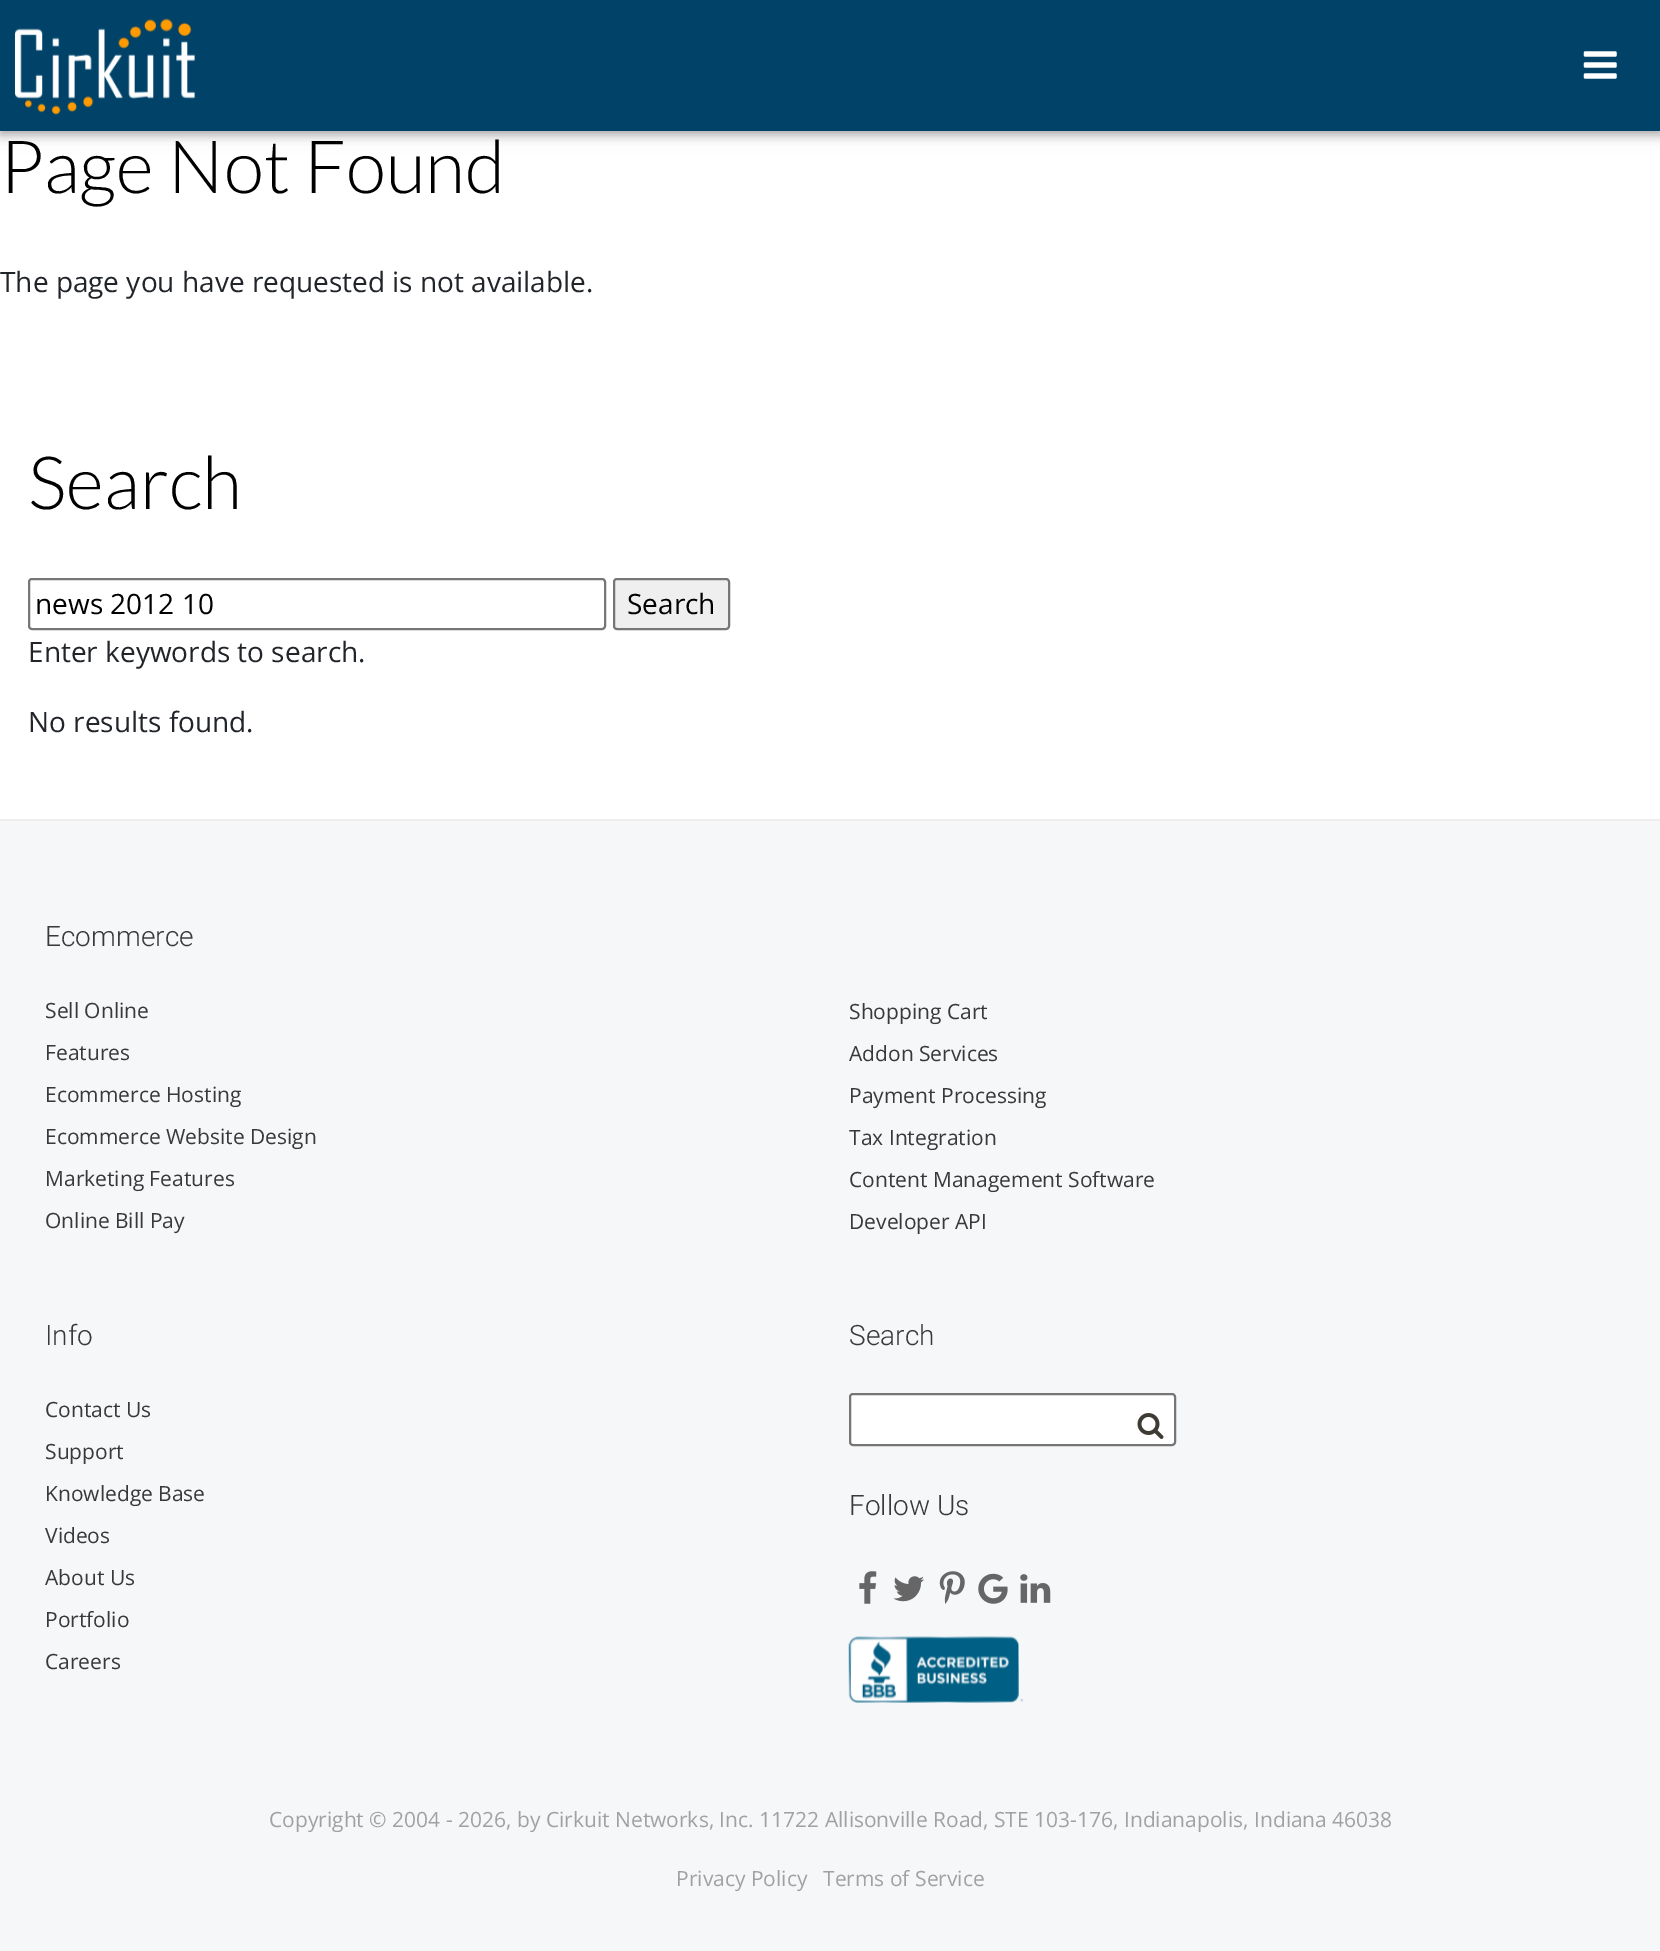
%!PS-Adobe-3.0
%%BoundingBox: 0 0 1660 1951
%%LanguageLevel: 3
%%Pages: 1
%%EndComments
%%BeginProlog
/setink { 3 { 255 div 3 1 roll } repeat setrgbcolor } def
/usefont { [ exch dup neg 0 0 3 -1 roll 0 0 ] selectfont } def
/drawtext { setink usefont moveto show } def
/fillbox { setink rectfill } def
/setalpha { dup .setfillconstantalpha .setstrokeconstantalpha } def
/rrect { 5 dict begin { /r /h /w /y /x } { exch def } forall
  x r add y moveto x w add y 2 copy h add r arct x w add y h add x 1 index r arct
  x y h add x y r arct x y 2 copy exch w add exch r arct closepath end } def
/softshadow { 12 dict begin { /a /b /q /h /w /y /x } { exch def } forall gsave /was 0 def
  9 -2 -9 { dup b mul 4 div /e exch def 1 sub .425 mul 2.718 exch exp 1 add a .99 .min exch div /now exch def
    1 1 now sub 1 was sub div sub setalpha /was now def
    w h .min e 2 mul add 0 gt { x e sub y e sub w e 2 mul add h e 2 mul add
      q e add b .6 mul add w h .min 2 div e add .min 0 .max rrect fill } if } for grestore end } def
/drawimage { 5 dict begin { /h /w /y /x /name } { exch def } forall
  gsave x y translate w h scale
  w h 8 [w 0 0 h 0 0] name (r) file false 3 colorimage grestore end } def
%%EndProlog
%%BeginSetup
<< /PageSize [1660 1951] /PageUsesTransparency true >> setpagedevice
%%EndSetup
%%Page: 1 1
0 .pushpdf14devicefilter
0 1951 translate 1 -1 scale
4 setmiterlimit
0 0 1660 1951 255 255 255 fillbox
0 0 0 setink
0 4 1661 131 0 9 0.1 softshadow
0 4 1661 131 0 4.5 0.25 softshadow
0 0 1660 131 1 66 104 fillbox
(assets/img1.rgb) 14 18 182 97 drawimage
(assets/img2.rgb) 1583 51 34 28 drawimage
(Page Not Found) 0 193 /Lato-Light 73.5 0 0 0 drawtext
(The page you have requested is not available.) 0 292 /OpenSans-Regular 28 33 37 41 drawtext
(Search) 28 509 /Lato-Light 73.5 0 0 0 drawtext
118 118 118 setink
2 setlinewidth
29 579 576 50 3 rrect stroke
(news 2012 10) 35 614 /OpenSans-Regular 28 0 0 0 drawtext
239 239 239 setink
614 579 115 50 3 rrect gsave fill grestore
118 118 118 setink
stroke
(Search) 627 614 /OpenSans-Regular 28 0 0 0 drawtext
(Enter keywords to search.) 28 662 /OpenSans-Regular 28 33 37 41 drawtext
(No results found.) 28 732 /OpenSans-Regular 28 33 37 41 drawtext
0 821 1660 1130 245 247 249 fillbox
0 819 1660 2 238 238 238 fillbox
(Ecommerce) 45 946 /Roboto-Light 28 57 57 57 drawtext
(Sell Online) 45 1018 /OpenSans-Regular 21 57 57 57 drawtext
(Features) 45 1060 /OpenSans-Regular 21 57 57 57 drawtext
(Ecommerce Hosting) 45 1102 /OpenSans-Regular 21 57 57 57 drawtext
(Ecommerce Website Design) 45 1144 /OpenSans-Regular 21 57 57 57 drawtext
(Marketing Features) 45 1186 /OpenSans-Regular 21 57 57 57 drawtext
(Online Bill Pay) 45 1228 /OpenSans-Regular 21 57 57 57 drawtext
(Shopping Cart) 849 1019 /OpenSans-Regular 21 57 57 57 drawtext
(Addon Services) 849 1061 /OpenSans-Regular 21 57 57 57 drawtext
(Payment Processing) 849 1103 /OpenSans-Regular 21 57 57 57 drawtext
(Tax Integration) 849 1145 /OpenSans-Regular 21 57 57 57 drawtext
(Content Management Software) 849 1187 /OpenSans-Regular 21 57 57 57 drawtext
(Developer API) 849 1229 /OpenSans-Regular 21 57 57 57 drawtext
(Info) 45 1345 /Roboto-Light 28 57 57 57 drawtext
(Contact Us) 45 1417 /OpenSans-Regular 21 57 57 57 drawtext
(Support) 45 1459 /OpenSans-Regular 21 57 57 57 drawtext
(Knowledge Base) 45 1501 /OpenSans-Regular 21 57 57 57 drawtext
(Videos) 45 1543 /OpenSans-Regular 21 57 57 57 drawtext
(About Us) 45 1585 /OpenSans-Regular 21 57 57 57 drawtext
(Portfolio) 45 1627 /OpenSans-Regular 21 57 57 57 drawtext
(Careers) 45 1669 /OpenSans-Regular 21 57 57 57 drawtext
(Search) 849 1345 /Roboto-Light 28 57 57 57 drawtext
255 255 255 setink
850 1394 325 51 3 rrect gsave fill grestore
118 118 118 setink
stroke
(assets/img3.rgb) 1137 1413 27 26 drawimage
(Follow Us) 849 1515 /Roboto-Light 28 57 57 57 drawtext
(assets/img4.rgb) 859 1571 18 33 drawimage
(assets/img5.rgb) 893 1576 31 26 drawimage
(assets/img6.rgb) 939 1571 26 33 drawimage
(assets/img7.rgb) 978 1573 30 31 drawimage
(assets/img8.rgb) 1020 1574 31 29 drawimage
(assets/img9.rgb) 848 1636 175 67 drawimage
(Copyright © 2004 - 2026, by Cirkuit Networks, Inc. 11722 Allisonville Road, STE 103-176, Indianapolis, Indiana 46038) 269 1827 /OpenSans-Regular 21 161 161 161 drawtext
(Privacy Policy) 676 1886 /OpenSans-Regular 21 161 161 161 drawtext
(Terms of Service) 823 1886 /OpenSans-Regular 21 161 161 161 drawtext
.poppdf14devicefilter showpage
%%EOF
